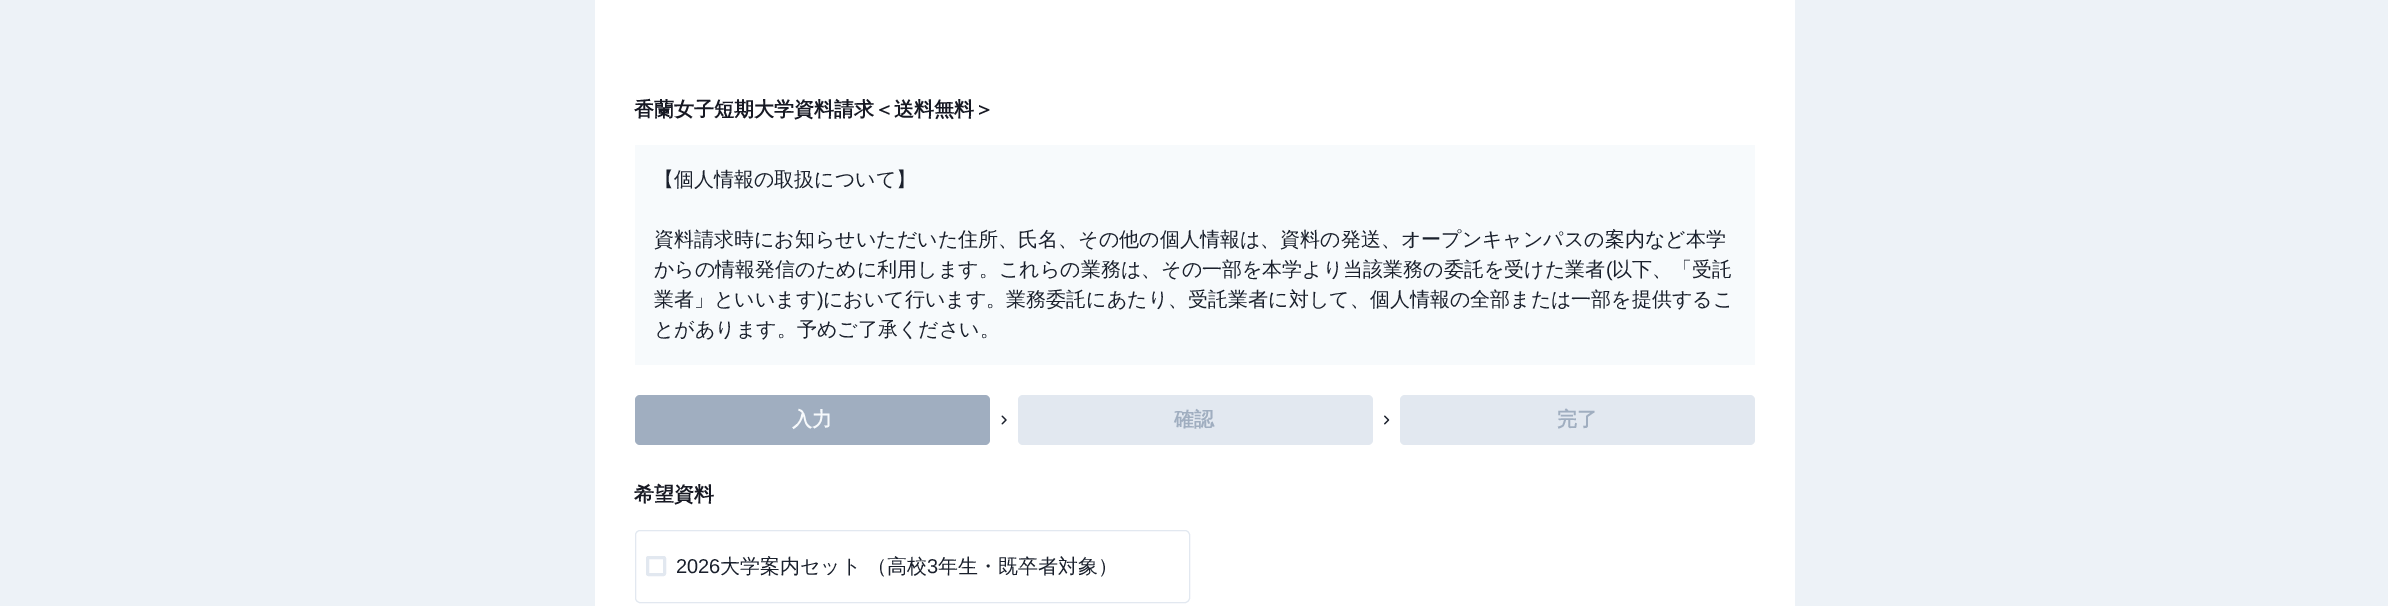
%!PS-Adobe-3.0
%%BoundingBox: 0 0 2388 606
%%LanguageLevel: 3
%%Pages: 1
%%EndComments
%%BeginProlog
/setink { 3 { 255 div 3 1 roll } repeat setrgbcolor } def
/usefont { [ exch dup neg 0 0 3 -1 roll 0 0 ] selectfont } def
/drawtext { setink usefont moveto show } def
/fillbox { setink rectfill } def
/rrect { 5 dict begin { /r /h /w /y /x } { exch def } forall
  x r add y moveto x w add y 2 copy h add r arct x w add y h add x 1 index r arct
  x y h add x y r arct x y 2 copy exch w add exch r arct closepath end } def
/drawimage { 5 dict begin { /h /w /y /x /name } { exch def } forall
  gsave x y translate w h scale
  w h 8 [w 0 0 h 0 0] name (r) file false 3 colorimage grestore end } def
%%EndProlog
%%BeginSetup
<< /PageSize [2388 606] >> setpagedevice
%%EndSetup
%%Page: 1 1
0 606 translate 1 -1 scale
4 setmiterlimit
0 0 2388 606 237 242 247 fillbox
595 0 1200 606 255 255 255 fillbox
(香蘭女子短期大学資料請求＜送料無料＞) 634 116 /WenQuanYiZenHei-Bold 20 23 25 35 drawtext
635 145 1120 220 247 250 252 fillbox
(【個人情報の取扱について】) 654 186 /WenQuanYiZenHei-Medium 20 26 32 44 drawtext
(資料請求時にお知らせいただいた住所、氏名、その他の個人情報は、資料の発送、オープンキャンパスの案内など本学) 654 246 /WenQuanYiZenHei-Medium 20 26 32 44 drawtext
(からの情報発信のために利用します。これらの業務は、その一部を本学より当該業務の委託を受けた業者) 654 276 /WenQuanYiZenHei-Medium 20 26 32 44 drawtext
(\() 1606 276 /LiberationSans-Regular 20 26 32 44 drawtext
(以下、「受託) 1612 276 /WenQuanYiZenHei-Medium 20 26 32 44 drawtext
(業者」といいます) 654 306 /WenQuanYiZenHei-Medium 20 26 32 44 drawtext
(\)) 817 306 /LiberationSans-Regular 20 26 32 44 drawtext
(において行います。業務委託にあたり、受託業者に対して、個人情報の全部または一部を提供するこ) 823 306 /WenQuanYiZenHei-Medium 20 26 32 44 drawtext
(とがあります。予めご了承ください。) 654 336 /WenQuanYiZenHei-Medium 20 26 32 44 drawtext
160 174 192 setink
635 395 355 50 5 rrect fill
(入力) 792 426 /WenQuanYiZenHei-Bold 20 247 250 252 drawtext
(assets/img1.rgb) 1001 415 6 10 drawimage
226 232 240 setink
1018 395 355 50 5 rrect fill
(確認) 1174 426 /WenQuanYiZenHei-Bold 20 160 174 192 drawtext
(assets/img2.rgb) 1384 415 6 10 drawimage
226 232 240 setink
1400 395 355 50 5 rrect fill
(完了) 1557 426 /WenQuanYiZenHei-Bold 20 160 174 192 drawtext
(希望資料) 634 501 /WenQuanYiZenHei-Bold 20 23 25 35 drawtext
226 232 240 setink
635.5 530.5 554 72 4.5 rrect stroke
3 setlinewidth
647.5 557.5 17 17 1 rrect stroke
(2026) 676 573 /LiberationSans-Regular 20 26 32 44 drawtext
(大学案内セット （高校) 720 573 /WenQuanYiZenHei-Medium 20 26 32 44 drawtext
(3) 927 573 /LiberationSans-Regular 20 26 32 44 drawtext
(年生・既卒者対象）) 938 573 /WenQuanYiZenHei-Medium 20 26 32 44 drawtext
showpage
%%EOF
